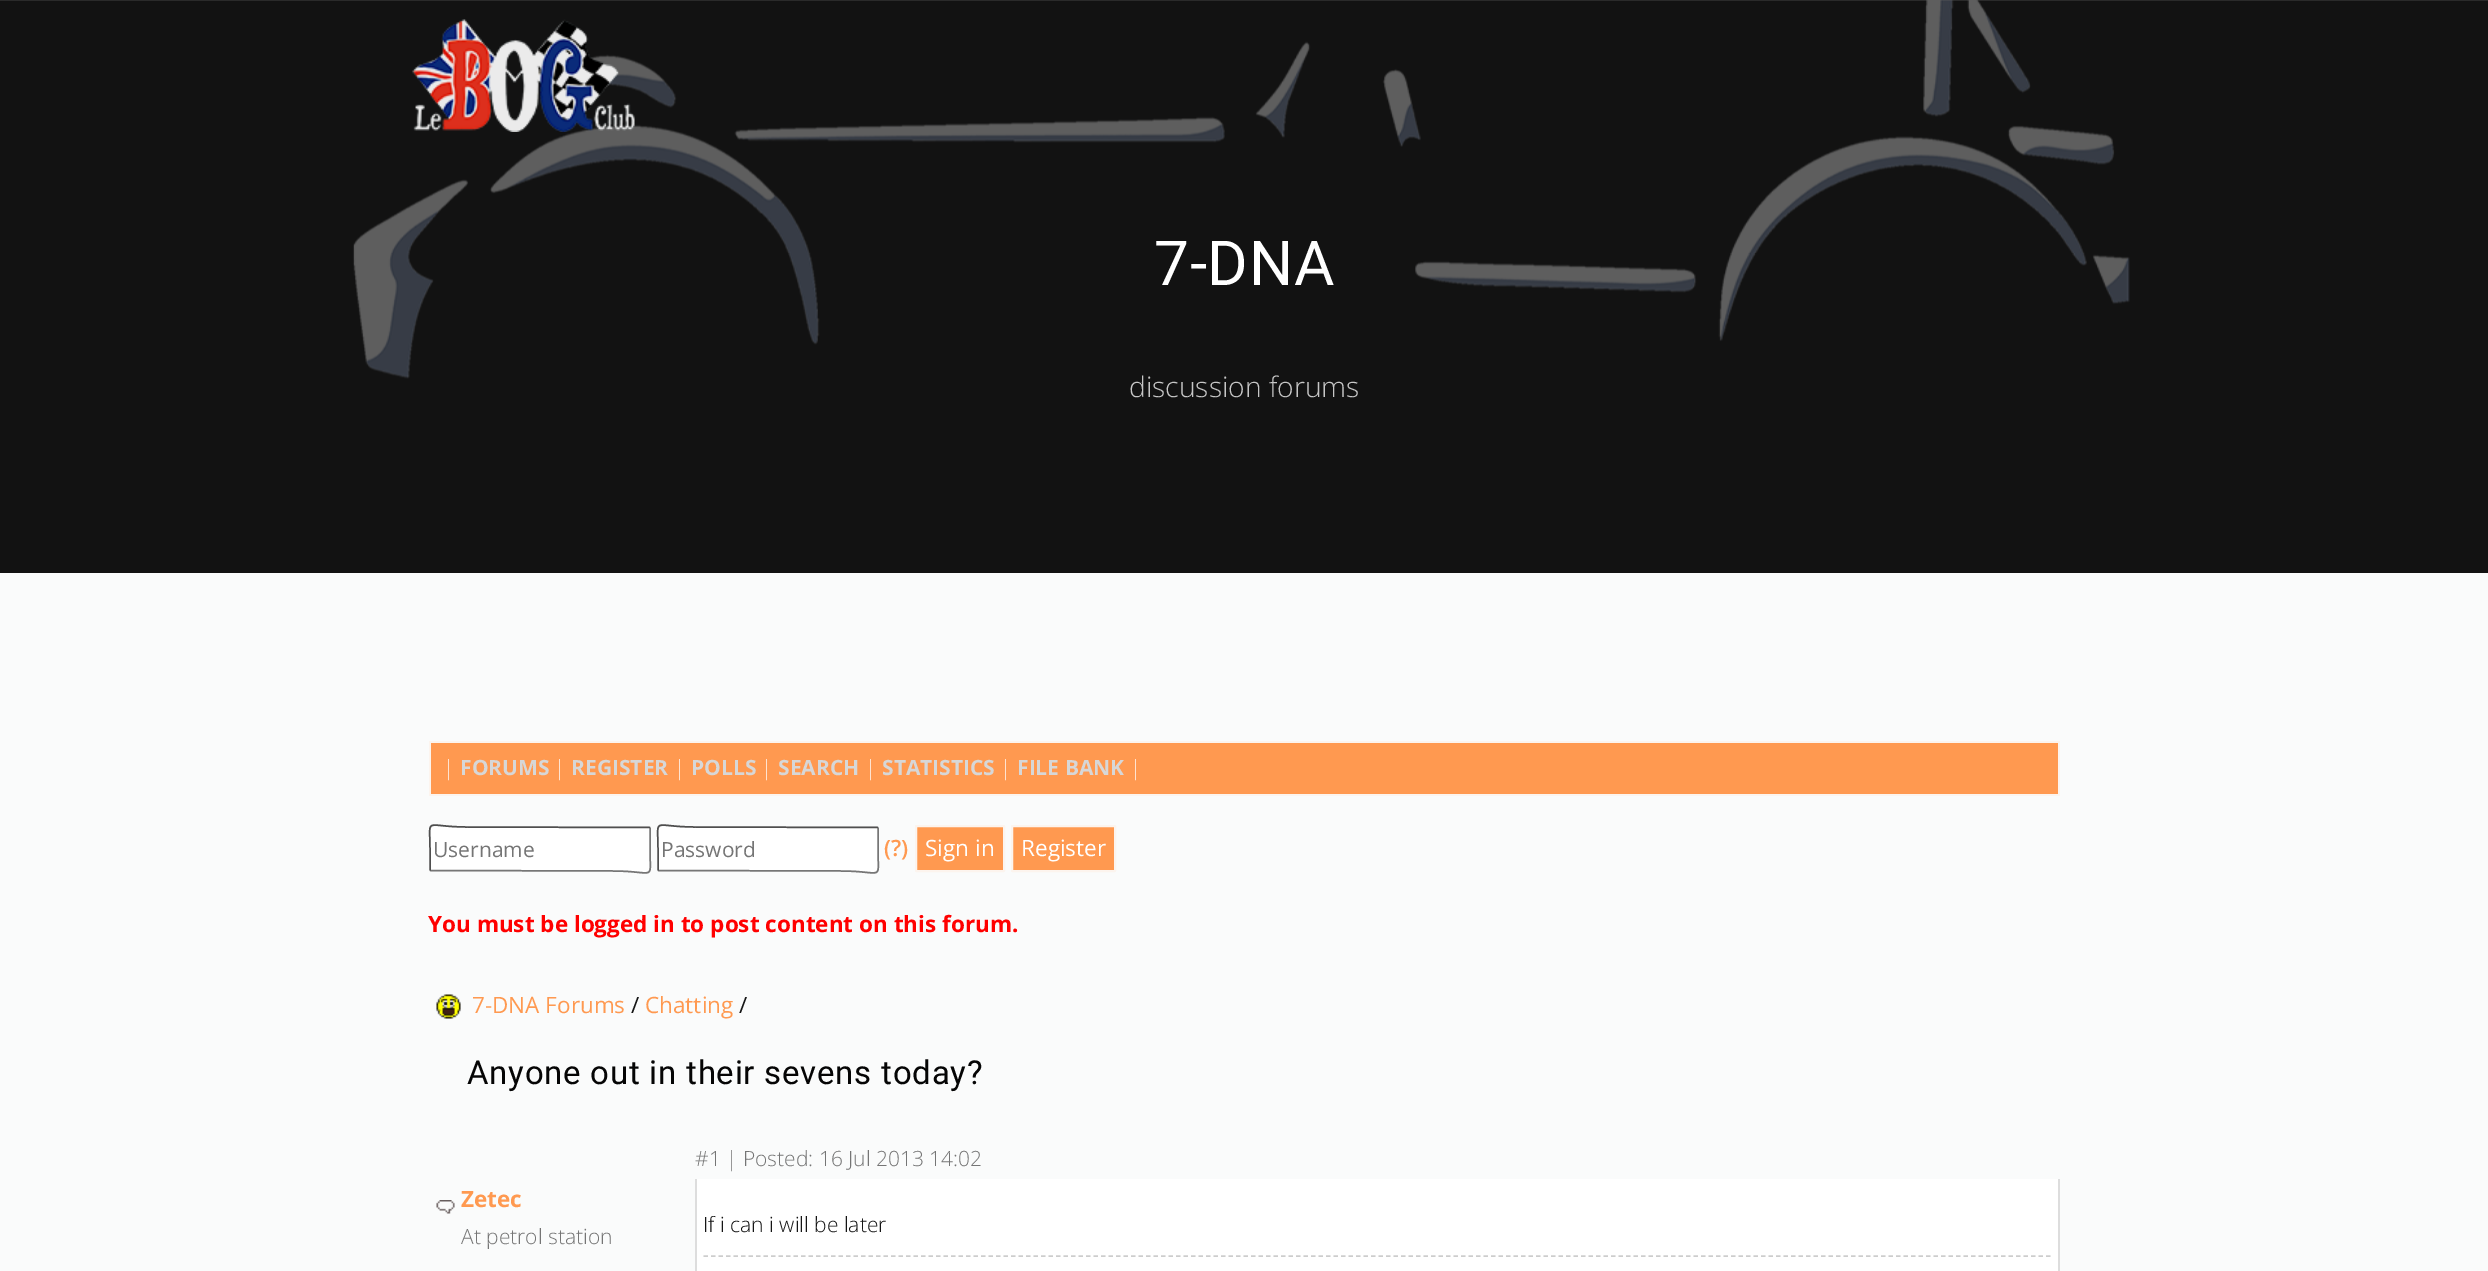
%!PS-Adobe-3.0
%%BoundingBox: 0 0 2488 1271
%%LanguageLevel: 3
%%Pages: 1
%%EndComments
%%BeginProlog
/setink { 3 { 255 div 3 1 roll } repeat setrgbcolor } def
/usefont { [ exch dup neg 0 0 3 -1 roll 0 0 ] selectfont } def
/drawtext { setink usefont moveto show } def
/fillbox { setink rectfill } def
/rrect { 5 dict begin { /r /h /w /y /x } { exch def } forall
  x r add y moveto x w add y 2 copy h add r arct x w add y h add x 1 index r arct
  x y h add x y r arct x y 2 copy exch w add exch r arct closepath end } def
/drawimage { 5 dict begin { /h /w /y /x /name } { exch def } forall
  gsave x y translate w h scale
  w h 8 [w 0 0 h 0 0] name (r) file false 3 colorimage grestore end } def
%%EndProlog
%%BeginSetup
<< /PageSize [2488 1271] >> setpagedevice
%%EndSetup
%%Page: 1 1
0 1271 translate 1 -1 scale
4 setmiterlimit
0 0 2488 1271 94 94 94 fillbox
(assets/img2.rgb) 0 0 2488 573 drawimage
(assets/img1.rgb) 412 19 223 113 drawimage
/Roboto-Regular 62 usefont
255 255 255 setink
1154 285 moveto 0.75 0 (7-DNA) ashow
(discussion forums) 1129 397 /OpenSans-Light 28.25 199 199 199 drawtext
0 573 2488 698 250 251 251 fillbox
431 743 1627 51 255 153 80 fillbox
429 741 1631 2 252 244 238 fillbox
2058 741 2 54 252 244 238 fillbox
429 794 1631 2 252 244 238 fillbox
429 741 2 54 252 244 238 fillbox
(|) 443 775 /OpenSans-Light 21 255 255 255 drawtext
(FORUMS) 460 775 /OpenSans-Bold 21 215 215 215 drawtext
(|) 554 775 /OpenSans-Light 21 255 255 255 drawtext
(REGISTER) 571 775 /OpenSans-Bold 21 215 215 215 drawtext
(|) 674 775 /OpenSans-Light 21 255 255 255 drawtext
(POLLS) 691 775 /OpenSans-Bold 21 215 215 215 drawtext
(|) 761 775 /OpenSans-Light 21 255 255 255 drawtext
(SEARCH) 778 775 /OpenSans-Bold 21 215 215 215 drawtext
(|) 865 775 /OpenSans-Light 21 255 255 255 drawtext
(STATISTICS) 882 775 /OpenSans-Bold 21 215 215 215 drawtext
(|) 1000 775 /OpenSans-Light 21 255 255 255 drawtext
(FILE BANK) 1017 775 /OpenSans-Bold 21 215 215 215 drawtext
(|) 1130 775 /OpenSans-Light 21 255 255 255 drawtext
429 827 222 45 1.5 rrect fill
118 118 118 setink
1.5 setlinewidth
650 827.5 moveto 650 849 lineto 650 882.5 656.5 871 613 871 curveto 430 870.5 lineto stroke
79 79 79 setink
430 870.5 moveto 430 849 lineto 430 815.5 423.5 827 467 827 curveto 650 827.5 lineto stroke
(Username) 433 857 /OpenSans-Regular 21 117 117 117 drawtext
255 255 255 setink
657 827 222 45 1.5 rrect fill
118 118 118 setink
878 827.5 moveto 878 849 lineto 878 882.5 884.5 871 841 871 curveto 658 870.5 lineto stroke
79 79 79 setink
658 870.5 moveto 658 849 lineto 658 815.5 651.5 827 695 827 curveto 878 827.5 lineto stroke
(Password) 661 857 /OpenSans-Regular 21 117 117 117 drawtext
(\(?\)) 884 856 /OpenSans-SemiBold 22.5 255 153 80 drawtext
916 826 88 45 0.5 rrect gsave fill grestore
252 244 238 setink
2 setlinewidth
stroke
(Sign in) 925 856 /OpenSans-Regular 22.5 255 255 255 drawtext
255 153 80 setink
1012 826 103 45 0.5 rrect gsave fill grestore
252 244 238 setink
stroke
(Register) 1021 856 /OpenSans-Regular 22.5 255 255 255 drawtext
(You must be logged in to post content on this forum.) 428 932 /OpenSans-Bold 22.5 255 0 0 drawtext
(assets/img3.rgb) 436 994 25 25 drawimage
(7-DNA Forums) 472 1013 /OpenSans-Regular 22.5 255 153 80 drawtext
(/) 631 1013 /OpenSans-Regular 22.5 21 21 21 drawtext
(Chatting) 645 1013 /OpenSans-Regular 22.5 255 153 80 drawtext
(/) 739 1013 /OpenSans-Regular 22.5 21 21 21 drawtext
/Roboto-Regular 33 usefont
5 5 5 setink
467 1084 moveto 0.75 0 (Anyone out in their sevens today?) ashow
(#1 | Posted: 16 Jul 2013 14:02) 695 1166 /OpenSans-Light 21 117 117 117 drawtext
(assets/img4.rgb) 436 1200 19 14 drawimage
(Zetec) 461 1207 /OpenSans-Bold 22.5 255 153 80 drawtext
(At petrol station) 461 1244 /OpenSans-Light 21 117 117 117 drawtext
697 1179 1361 92 255 255 255 fillbox
2058 1179 2 92 221 221 221 fillbox
695 1179 2 92 221 221 221 fillbox
(If i can i will be later) 703 1232 /OpenSans-Light 21 21 21 21 drawtext
205 205 205 setink
1.5 setlinewidth
[4.5 3] 0 setdash
703.5 1256 moveto 2050.5 1256 lineto stroke
showpage
%%EOF
